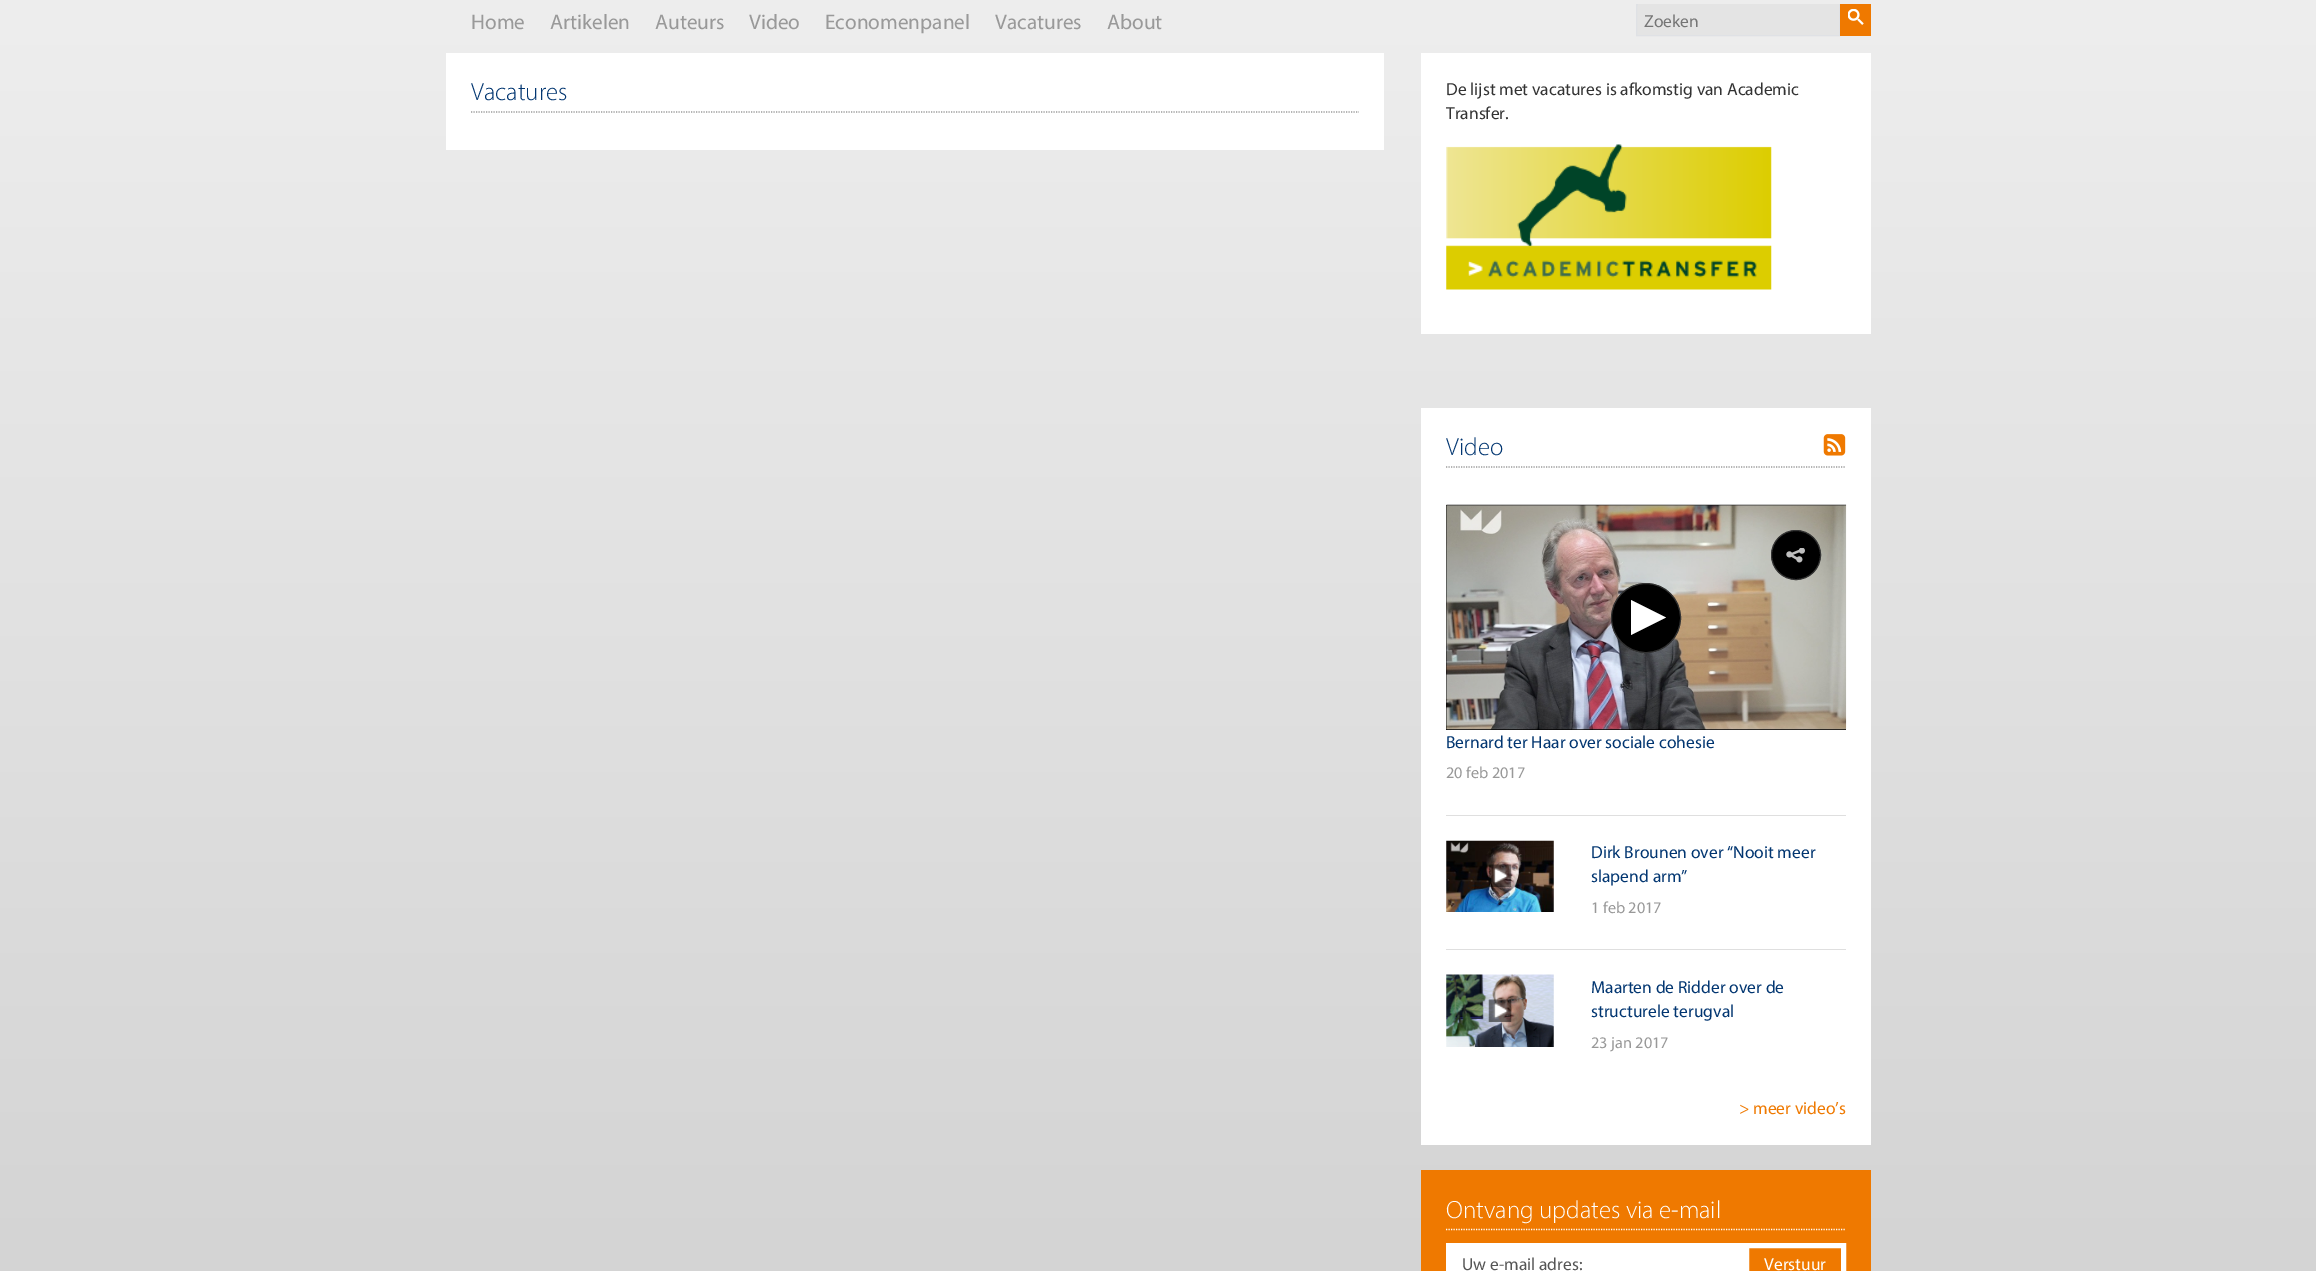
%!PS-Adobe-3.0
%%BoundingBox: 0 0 2316 1271
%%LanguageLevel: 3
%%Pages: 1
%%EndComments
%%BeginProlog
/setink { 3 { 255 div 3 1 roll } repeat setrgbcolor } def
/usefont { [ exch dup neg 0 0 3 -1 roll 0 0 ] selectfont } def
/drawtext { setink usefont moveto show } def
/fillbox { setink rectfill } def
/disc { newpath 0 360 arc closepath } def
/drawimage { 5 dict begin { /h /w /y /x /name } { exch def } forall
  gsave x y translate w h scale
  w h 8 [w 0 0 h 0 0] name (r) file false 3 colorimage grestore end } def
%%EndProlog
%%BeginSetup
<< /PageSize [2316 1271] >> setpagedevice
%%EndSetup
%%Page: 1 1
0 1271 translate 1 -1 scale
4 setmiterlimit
0 0 2316 1271 255 255 255 fillbox
gsave 0 0 moveto 2316 0 lineto 2316 1271 lineto 0 1271 lineto closepath clip newpath
<< /ShadingType 2 /ColorSpace /DeviceRGB /Coords [1158 -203 1158 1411] /Extend [true true] /Function << /FunctionType 2 /Domain [0 1] /C0 [0.949 0.949 0.949] /C1 [0.82 0.82 0.82] /N 1 >> >> shfill grestore
(Home) 471 29 /Myriad-Regular 21.25 153 153 153 drawtext
(Artikelen) 550 29 /Myriad-Regular 21.25 153 153 153 drawtext
(Auteurs) 655 29 /Myriad-Regular 21.25 153 153 153 drawtext
(Video) 749 29 /Myriad-Regular 21.25 153 153 153 drawtext
(Economenpanel) 825 29 /Myriad-Regular 21.25 153 153 153 drawtext
(Vacatures) 995 29 /Myriad-Regular 21.25 153 153 153 drawtext
(About) 1107 29 /Myriad-Regular 21.25 153 153 153 drawtext
1637 5 1 30 228 228 228 fillbox
223 225 229 setink
1636.5 4.5 203 31 rectstroke
1638 4 201 31 228 228 228 fillbox
(Zoeken) 1644 27 /Myriad-Regular 17.5 117 117 117 drawtext
1840 4 31 32 239 121 0 fillbox
(assets/img1.rgb) 1848 9 16 16 drawimage
446 53 938 97 255 255 255 fillbox
153 153 153 setink
1.2 setlinewidth
[1.25 1.25] 0 setdash
471 112 moveto 1359 112 lineto stroke
(Vacatures) 471 100 /Myriad-Light 25 2 54 113 drawtext
1421 53 450 281 255 255 255 fillbox
(De lijst met vacatures is afkomstig van Academic) 1446 95 /Myriad-Regular 17.5 51 51 51 drawtext
(Transfer.) 1446 119 /Myriad-Regular 17.5 51 51 51 drawtext
(assets/img2.rgb) 1446 144 326 146 drawimage
1421 408 450 737 255 255 255 fillbox
153 153 153 setink
1446 467 moveto 1846 467 lineto stroke
(Video) 1446 455 /Myriad-Light 25 2 54 113 drawtext
(assets/img3.rgb) 1823 434 23 22 drawimage
1446 815 400 1 223 223 223 fillbox
1446 505 400 225 0 0 0 fillbox
(assets/img4.rgb) 1446 504 401 226 drawimage
1796 555 24.5 disc gsave fill grestore
51 51 51 setink
1 setlinewidth
[] 0 setdash
stroke
(assets/img5.rgb) 1786 548 19 15 drawimage
0 0 0 setink
1646 618 34.5 disc gsave fill grestore
51 51 51 setink
stroke
255 255 255 setink
1666 617.5 moveto 1631 635 lineto 1631 600 lineto closepath fill
(Bernard ter Haar over sociale cohesie) 1446 748 /Myriad-Regular 17.5 2 54 113 drawtext
(20 feb 2017) 1446 778 /Myriad-Regular 16.25 153 153 153 drawtext
1446 949 400 1 223 223 223 fillbox
(assets/img6.rgb) 1446 840 108 72 drawimage
(assets/img7.rgb) 1488 864 24 23 drawimage
(Dirk Brounen over “Nooit meer) 1591 858 /Myriad-Regular 17.5 2 54 113 drawtext
(slapend arm”) 1591 882 /Myriad-Regular 17.5 2 54 113 drawtext
(1 feb 2017) 1591 913 /Myriad-Regular 16.25 153 153 153 drawtext
(assets/img8.rgb) 1446 974 108 73 drawimage
(assets/img9.rgb) 1488 999 24 23 drawimage
(Maarten de Ridder over de) 1591 993 /Myriad-Regular 17.5 2 54 113 drawtext
(structurele terugval) 1591 1017 /Myriad-Regular 17.5 2 54 113 drawtext
(23 jan 2017) 1591 1048 /Myriad-Regular 16.25 153 153 153 drawtext
(> meer video’s) 1739 1114 /Myriad-Regular 17.5 239 121 0 drawtext
1421 1170 450 101 239 121 0 fillbox
255 255 255 setink
1.2 setlinewidth
[1.25 1.25] 0 setdash
1446 1229.5 moveto 1846 1229.5 lineto stroke
(Ontvang updates via e-mail) 1446 1218 /Myriad-Light 25 255 255 255 drawtext
1446 1243 298 28 255 255 255 fillbox
(Uw e-mail adres:) 1462 1270 /Myriad-Regular 17.5 85 85 85 drawtext
255 255 255 setink
5 setlinewidth
[] 0 setdash
1746.5 1245.5 97 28 rectstroke
(Verstuur) 1764 1270 /Myriad-Regular 17.5 255 255 255 drawtext
showpage
%%EOF
